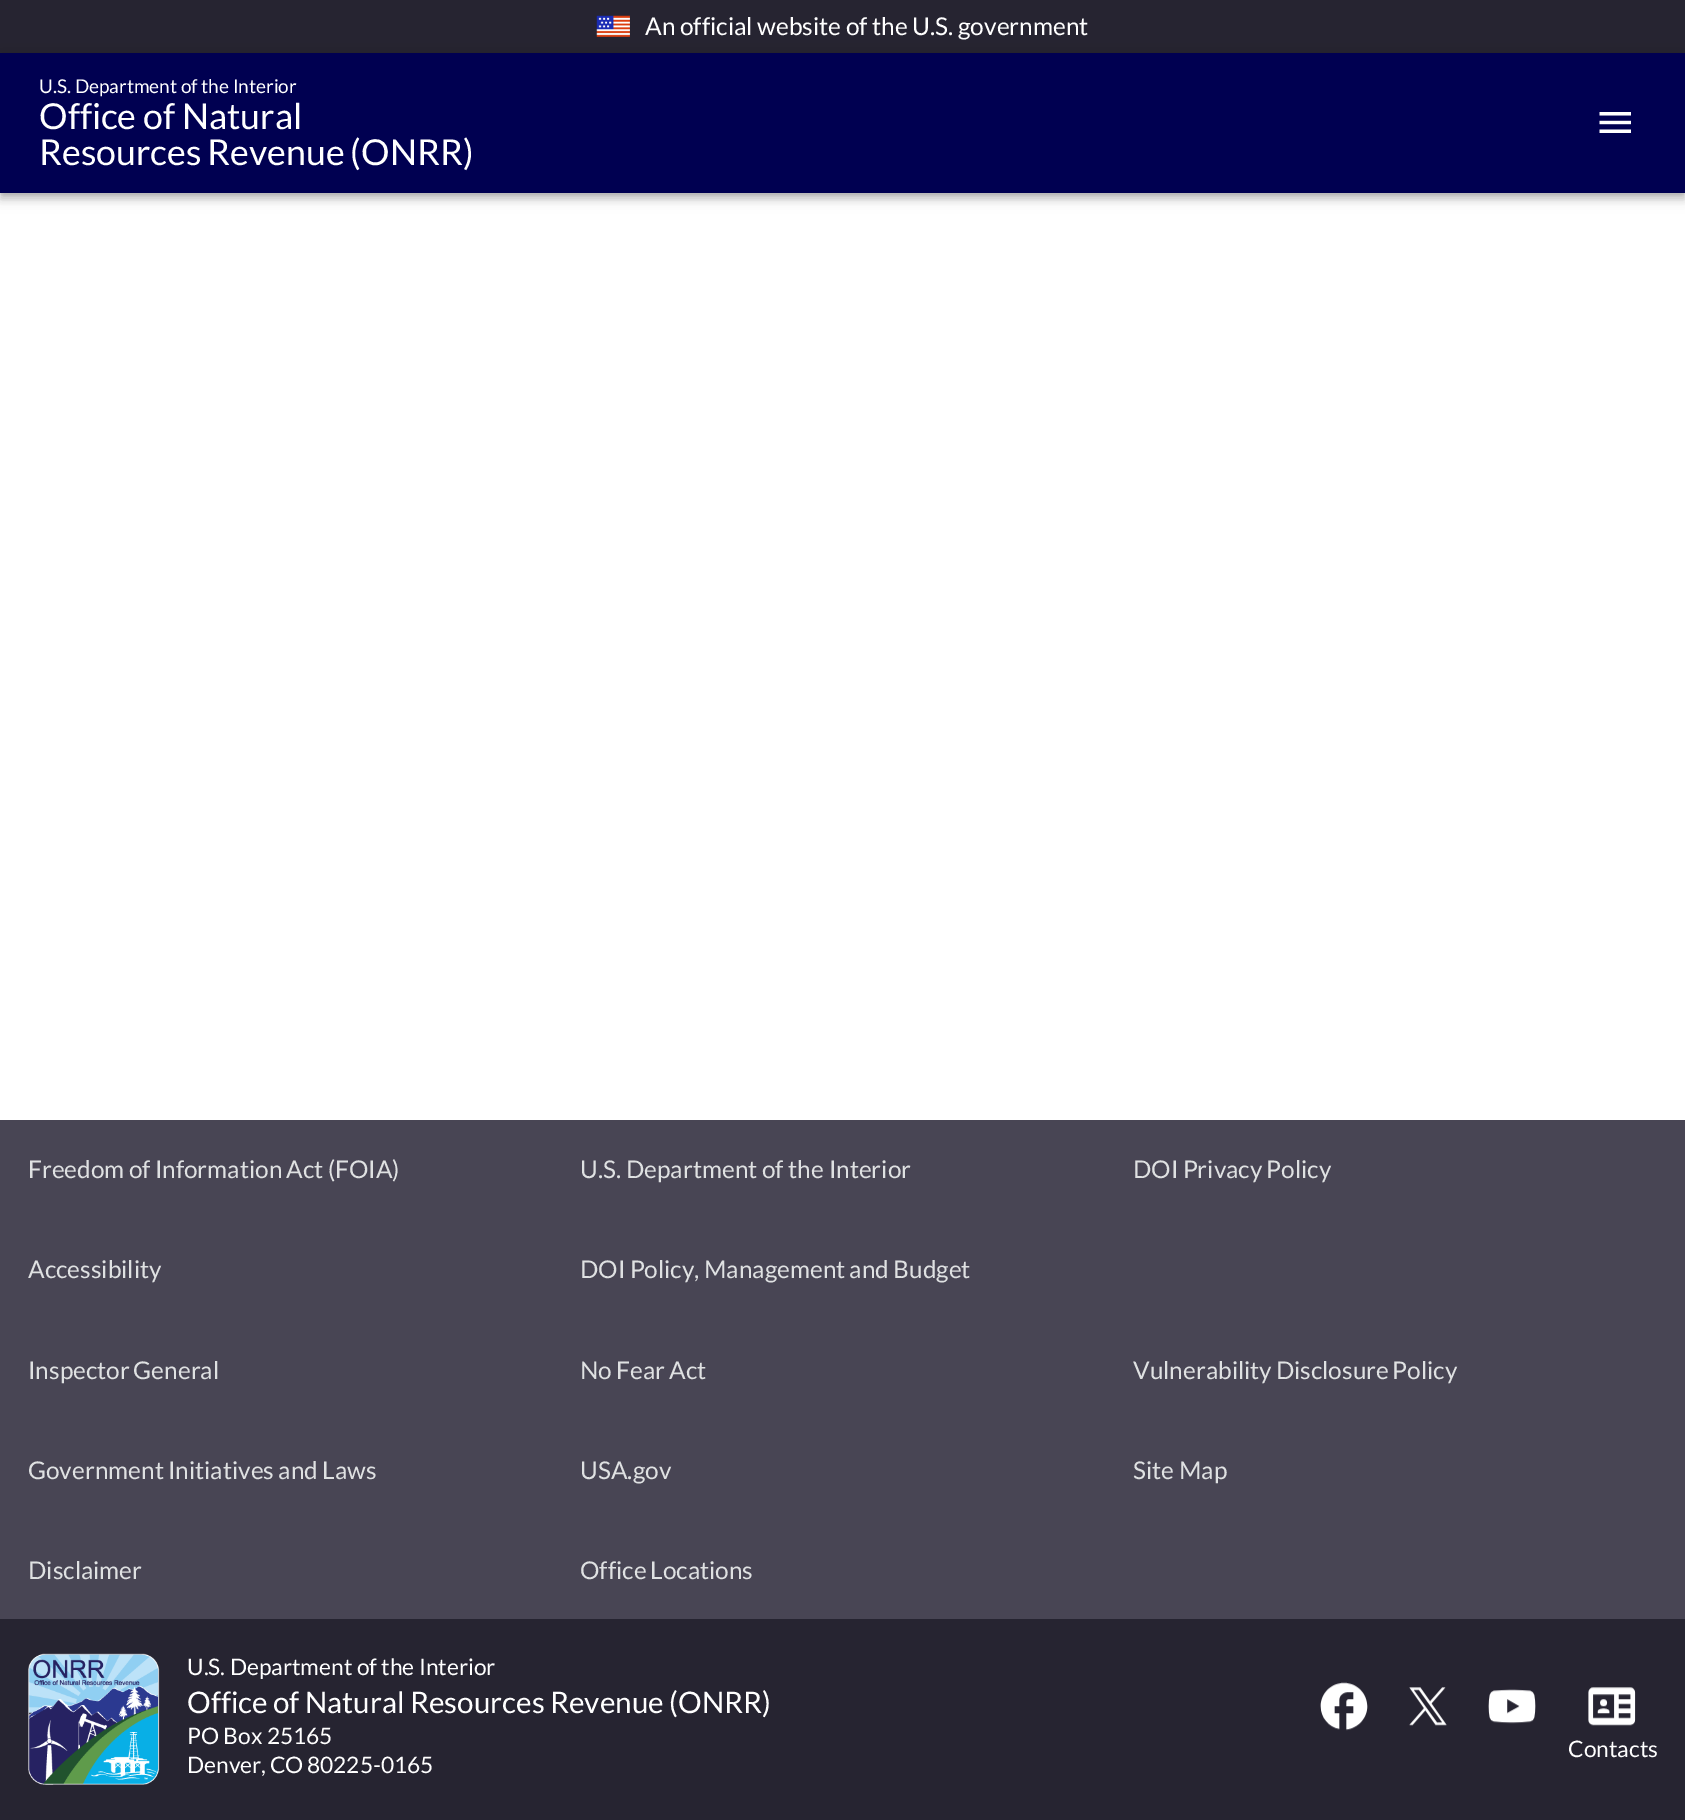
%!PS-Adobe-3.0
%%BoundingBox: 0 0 1685 1820
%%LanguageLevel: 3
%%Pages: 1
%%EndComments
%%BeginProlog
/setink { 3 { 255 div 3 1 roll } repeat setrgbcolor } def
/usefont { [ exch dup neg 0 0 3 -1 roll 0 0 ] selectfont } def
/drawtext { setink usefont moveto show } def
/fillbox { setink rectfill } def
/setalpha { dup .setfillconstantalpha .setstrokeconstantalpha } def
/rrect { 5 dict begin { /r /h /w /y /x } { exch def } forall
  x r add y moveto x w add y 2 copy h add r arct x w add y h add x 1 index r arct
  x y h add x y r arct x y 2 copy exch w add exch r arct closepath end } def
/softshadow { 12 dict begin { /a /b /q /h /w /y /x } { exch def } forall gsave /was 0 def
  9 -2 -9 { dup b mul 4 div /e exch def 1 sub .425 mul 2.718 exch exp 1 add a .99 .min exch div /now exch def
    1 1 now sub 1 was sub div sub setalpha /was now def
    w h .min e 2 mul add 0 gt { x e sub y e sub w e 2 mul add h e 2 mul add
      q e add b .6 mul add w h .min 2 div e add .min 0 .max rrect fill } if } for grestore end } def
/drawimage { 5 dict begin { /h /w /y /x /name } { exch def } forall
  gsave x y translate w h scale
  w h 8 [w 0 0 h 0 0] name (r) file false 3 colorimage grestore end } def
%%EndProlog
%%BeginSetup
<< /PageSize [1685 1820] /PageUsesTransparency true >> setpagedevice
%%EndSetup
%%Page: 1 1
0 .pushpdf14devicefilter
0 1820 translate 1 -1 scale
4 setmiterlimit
0 0 1685 1820 255 255 255 fillbox
0 0 1685 53 38 36 49 fillbox
(assets/img1.rgb) 596 15 34 22 drawimage
/Lato-Regular 24.5 usefont
255 255 255 setink
645 35 moveto -0.25 0 32 (An official website of the U.S. government) widthshow
0 0 0 setink
0 54 1685 140 0 9 0.12 softshadow
0 60 1685 140 0 4.5 0.14 softshadow
2 58 1682 136 0 3.5 0.2 softshadow
0 53 1685 140 0 0 81 fillbox
(U.S. Department of the Interior) 39 93 /Lato-Regular 19 255 255 255 drawtext
(Office of Natural) 39 129 /Lato-Regular 35.75 255 255 255 drawtext
39 165 moveto -1 0 32 (Resources Revenue \(ONRR\)) widthshow
(assets/img2.rgb) 1599 112 32 21 drawimage
0 1120 1685 499 72 69 84 fillbox
/Lato-Regular 24.4 usefont
223 225 226 setink
28 1178 moveto -0.5 0 32 (Freedom of Information Act \(FOIA\)) widthshow
(U.S. Department of the Interior) 580 1178 /Lato-Regular 24.4 223 225 226 drawtext
1133 1178 moveto -0.5 0 32 (DOI Privacy Policy) widthshow
(Accessibility) 28 1278 /Lato-Regular 24.4 223 225 226 drawtext
580 1278 moveto -0.5 0 32 (DOI Policy, Management and Budget) widthshow
28 1379 moveto -1 0 32 (Inspector General) widthshow
580 1379 moveto -0.5 0 32 (No Fear Act) widthshow
1133 1379 moveto -1 0 32 (Vulnerability Disclosure Policy) widthshow
28 1479 moveto -0.5 0 32 (Government Initiatives and Laws) widthshow
(USA.gov) 580 1479 /Lato-Regular 24.4 223 225 226 drawtext
(Site Map) 1133 1479 /Lato-Regular 24.4 223 225 226 drawtext
(Disclaimer) 28 1579 /Lato-Regular 24.4 223 225 226 drawtext
580 1579 moveto -1 0 32 (Office Locations) widthshow
0 1619 1685 201 38 36 49 fillbox
(assets/img3.rgb) 28 1653 132 132 drawimage
(U.S. Department of the Interior) 187 1675 /Lato-Regular 22.75 255 255 255 drawtext
/Lato-Regular 29.7 usefont
187 1713 moveto -0.5 0 32 (Office of Natural Resources Revenue \(ONRR\)) widthshow
(PO Box 25165) 187 1744 /Lato-Regular 22.75 255 255 255 drawtext
187 1773 moveto -1 0 32 (Denver, CO 80225-0165) widthshow
(assets/img4.rgb) 1320 1682 48 49 drawimage
(assets/img5.rgb) 1409 1687 38 39 drawimage
(assets/img6.rgb) 1488 1689 48 35 drawimage
(assets/img7.rgb) 1588 1687 48 39 drawimage
(Contacts) 1568 1757 /Lato-Regular 22.75 255 255 255 drawtext
.poppdf14devicefilter showpage
%%EOF
